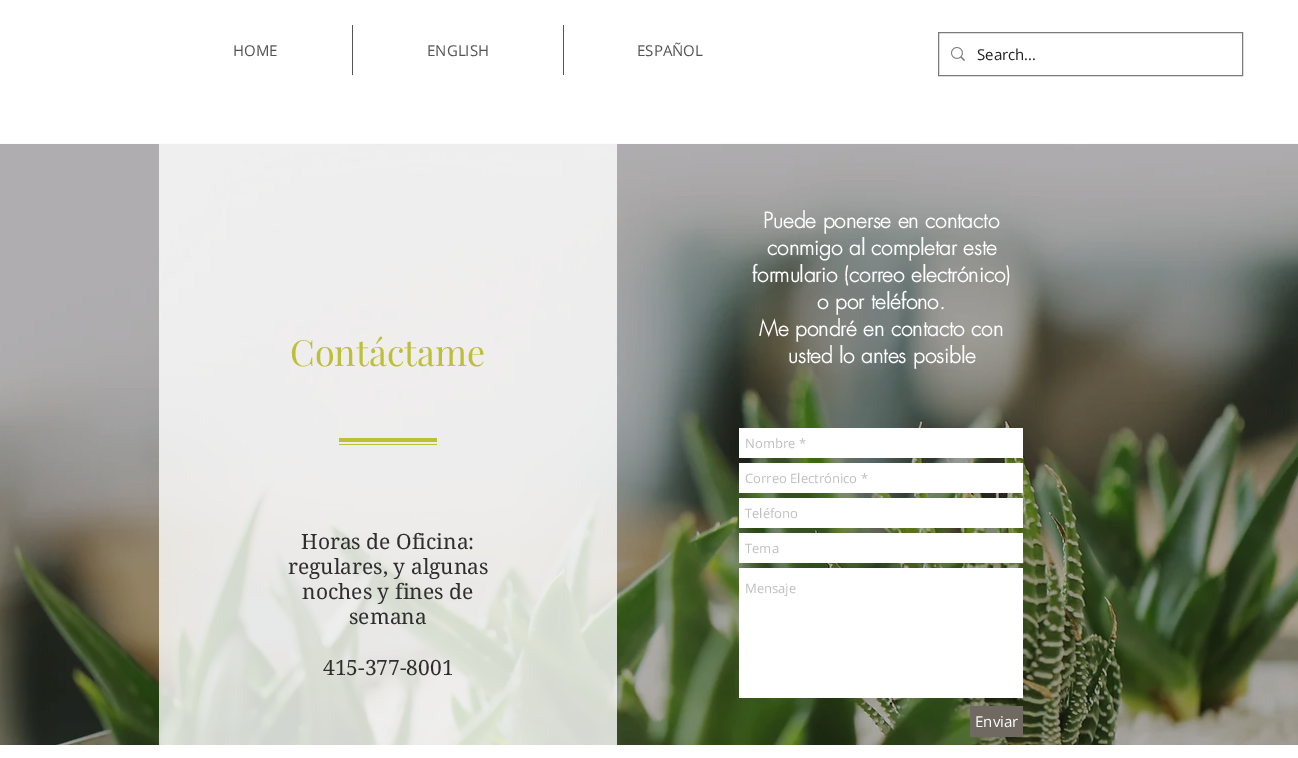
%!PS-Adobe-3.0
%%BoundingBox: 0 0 1298 758
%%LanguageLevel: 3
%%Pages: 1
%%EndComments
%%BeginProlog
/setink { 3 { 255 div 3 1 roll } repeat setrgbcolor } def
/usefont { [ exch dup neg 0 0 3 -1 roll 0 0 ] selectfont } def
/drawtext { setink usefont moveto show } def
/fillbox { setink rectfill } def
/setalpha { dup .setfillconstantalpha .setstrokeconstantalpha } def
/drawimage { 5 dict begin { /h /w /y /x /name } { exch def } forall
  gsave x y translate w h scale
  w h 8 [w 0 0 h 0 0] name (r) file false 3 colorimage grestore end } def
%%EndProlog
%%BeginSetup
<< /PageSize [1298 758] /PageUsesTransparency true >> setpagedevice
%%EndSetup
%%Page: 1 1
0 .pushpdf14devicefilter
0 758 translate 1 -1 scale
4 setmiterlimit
0 0 1298 758 255 255 255 fillbox
(HOME) 233 56 /OpenSans-Regular 15 85 83 83 drawtext
352 25 1 50 85 83 83 fillbox
(ENGLISH) 427 56 /OpenSans-Regular 15 85 83 83 drawtext
563 25 1 50 85 83 83 fillbox
(ESPAÑOL) 637 56 /OpenSans-Regular 15 85 83 83 drawtext
122 122 122 setink
938.5 32.5 304 43 rectstroke
(assets/img1.rgb) 951 47 14 14 drawimage
(Search...) 977 60 /OpenSans-Regular 15 34 34 34 drawtext
(assets/img2.rgb) 0 143 1298 602 drawimage
(Puede ponerse en contacto) 763 228 /futura-Bold 21 255 255 255 drawtext
(conmigo al completar este) 767 255 /futura-Bold 21 255 255 255 drawtext
(formulario \(correo electrónico\)) 752 282 /futura-Bold 21 255 255 255 drawtext
(o por teléfono.) 817 309 /futura-Bold 21 255 255 255 drawtext
(Me pondré en contacto con) 759 336 /futura-Bold 21 255 255 255 drawtext
(usted lo antes posible) 788 363 /futura-Bold 21 255 255 255 drawtext
0.8 setalpha
159 144 458 601 255 255 255 fillbox
1 setalpha
(Contáctame) 290 366 /PlayfairDisplay-Regular 36 189 191 55 drawtext
339 438 98 4 189 191 55 fillbox
339 444 98 1 189 191 55 fillbox
(Horas de Oficina:) 301 549 /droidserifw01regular-Regular 21 47 46 46 drawtext
(regulares, y algunas) 288 574 /droidserifw01regular-Regular 21 47 46 46 drawtext
(noches y fines de) 302 599 /droidserifw01regular-Regular 21 47 46 46 drawtext
(semana) 349 624 /droidserifw01regular-Regular 21 47 46 46 drawtext
(415-377-8001) 323 675 /droidserifw01regular-Regular 21 47 46 46 drawtext
739 428 284 30 255 255 255 fillbox
(Nombre *) 745 448 /OpenSans-Regular 13 190 190 190 drawtext
739 463 284 30 255 255 255 fillbox
(Correo Electrónico *) 745 483 /OpenSans-Regular 13 190 190 190 drawtext
739 498 284 30 255 255 255 fillbox
(Teléfono) 745 518 /OpenSans-Regular 13 190 190 190 drawtext
739 533 284 30 255 255 255 fillbox
(Tema) 745 553 /OpenSans-Regular 13 190 190 190 drawtext
739 568 284 130 255 255 255 fillbox
(Mensaje) 745 593 /OpenSans-Regular 13 190 190 190 drawtext
970 706 53 31 112 105 98 fillbox
(Enviar) 975 727 /OpenSans-Regular 15 255 255 255 drawtext
.poppdf14devicefilter showpage
%%EOF
